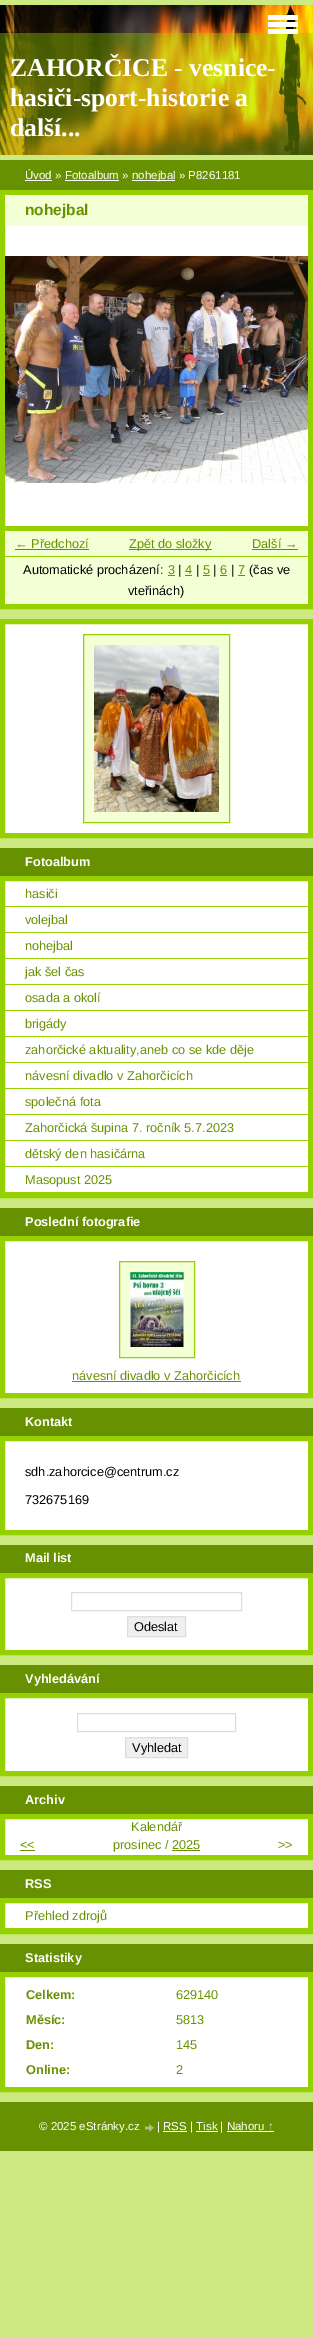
%!PS-Adobe-3.0
%%BoundingBox: 0 0 313 2337
%%LanguageLevel: 3
%%Pages: 1
%%EndComments
%%BeginProlog
/setink { 3 { 255 div 3 1 roll } repeat setrgbcolor } def
/usefont { [ exch dup neg 0 0 3 -1 roll 0 0 ] selectfont } def
/drawtext { setink usefont moveto show } def
/fillbox { setink rectfill } def
/setalpha { dup .setfillconstantalpha .setstrokeconstantalpha } def
/drawimage { 5 dict begin { /h /w /y /x /name } { exch def } forall
  gsave x y translate w h scale
  w h 8 [w 0 0 h 0 0] name (r) file false 3 colorimage grestore end } def
%%EndProlog
%%BeginSetup
<< /PageSize [313 2337] /PageUsesTransparency true >> setpagedevice
%%EndSetup
%%Page: 1 1
0 .pushpdf14devicefilter
0 2337 translate 1 -1 scale
4 setmiterlimit
0 0 313 2337 204 234 129 fillbox
(assets/img1.rgb) 0 5 313 150 drawimage
268 15 30 5 255 255 255 fillbox
268 22 30 5 255 255 255 fillbox
0.4 setalpha
0 33 313 122 148 208 1 fillbox
1 setalpha
268 29 30 5 255 255 255 fillbox
(ZAHORČICE - vesnice-) 10 76 /LiberationSerif-Bold 25.6 255 255 255 drawtext
(hasiči-sport-historie a) 10 106 /LiberationSerif-Bold 25.6 255 255 255 drawtext
(další...) 10 136 /LiberationSerif-Bold 25.6 255 255 255 drawtext
0 160 313 30 104 145 1 fillbox
(Úvod » Fotoalbum ») 25 179 /LiberationSans-Regular 11.5 255 255 255 drawtext
25 180 27 1 255 255 255 fillbox
132 180 43 1 255 255 255 fillbox
(nohejbal » P8261181) 132 179 /LiberationSans-Regular 11.5 255 255 255 drawtext
65 180 54 1 255 255 255 fillbox
5 226 303 300 255 255 255 fillbox
149 208 1 setink
5 setlinewidth
2.5 192.5 308 414 rectstroke
5 195 303 31 243 255 213 fillbox
(nohejbal) 25 215 /LiberationSans-Bold 15.5 104 145 1 drawtext
(assets/img2.rgb) 5 256 303 227 drawimage
5 531 303 25 243 255 213 fillbox
5 526 303 5 149 208 1 fillbox
(← Předchozí) 15 548 /LiberationSans-Regular 12.75 104 145 1 drawtext
15 549 74 1 104 145 1 fillbox
129 549 83 1 104 145 1 fillbox
(Zpět do složky) 129 548 /LiberationSans-Regular 12.75 104 145 1 drawtext
(Další →) 252 548 /LiberationSans-Regular 12.75 104 145 1 drawtext
252 549 46 1 104 145 1 fillbox
5 557 303 47 243 255 213 fillbox
5 556 303 1 149 208 1 fillbox
(Automatické procházení:) 23 574 /LiberationSans-Regular 12.75 0 0 0 drawtext
(3) 168 574 /LiberationSans-Regular 12.75 104 145 1 drawtext
168 575 7 1 104 145 1 fillbox
(|) 178 574 /LiberationSans-Regular 12.75 0 0 0 drawtext
(4) 185 574 /LiberationSans-Regular 12.75 104 145 1 drawtext
185 575 7 1 104 145 1 fillbox
(|) 196 574 /LiberationSans-Regular 12.75 0 0 0 drawtext
(5) 203 574 /LiberationSans-Regular 12.75 104 145 1 drawtext
203 575 7 1 104 145 1 fillbox
(|) 213 574 /LiberationSans-Regular 12.75 0 0 0 drawtext
(6) 220 574 /LiberationSans-Regular 12.75 104 145 1 drawtext
220 575 7 1 104 145 1 fillbox
(|) 231 574 /LiberationSans-Regular 12.75 0 0 0 drawtext
(7) 238 574 /LiberationSans-Regular 12.75 104 145 1 drawtext
238 575 7 1 104 145 1 fillbox
(\(čas ve) 249 574 /LiberationSans-Regular 12.75 0 0 0 drawtext
(vteřinách\)) 128 595 /LiberationSans-Regular 12.75 0 0 0 drawtext
255 255 255 setink
2.5 621.5 moveto 310.5 621.5 lineto 310.5 835.5 lineto 2.5 835.5 lineto closepath gsave fill grestore
149 208 1 setink
stroke
243 255 213 setink
83.5 634.5 moveto 229.5 634.5 lineto 229.5 822.5 lineto 83.5 822.5 lineto closepath gsave fill grestore
149 208 1 setink
1 setlinewidth
stroke
(assets/img3.rgb) 94 645 125 167 drawimage
0 848 313 28 104 145 1 fillbox
(Fotoalbum) 25 866 /LiberationSans-Bold 12.75 255 255 255 drawtext
5 881 303 311 255 255 255 fillbox
149 208 1 setink
5 setlinewidth
2.5 878.5 308 317 rectstroke
5 906 303 1 149 208 1 fillbox
(hasiči) 25 898 /LiberationSans-Regular 12.75 104 145 1 drawtext
5 932 303 1 149 208 1 fillbox
(volejbal) 25 924 /LiberationSans-Regular 12.75 104 145 1 drawtext
5 958 303 1 149 208 1 fillbox
(nohejbal) 25 950 /LiberationSans-Regular 12.75 104 145 1 drawtext
5 984 303 1 149 208 1 fillbox
(jak šel čas) 25 976 /LiberationSans-Regular 12.75 104 145 1 drawtext
5 1010 303 1 149 208 1 fillbox
(osada a okolí) 25 1002 /LiberationSans-Regular 12.75 104 145 1 drawtext
5 1036 303 1 149 208 1 fillbox
(brigády) 25 1028 /LiberationSans-Regular 12.75 104 145 1 drawtext
5 1062 303 1 149 208 1 fillbox
(zahorčické aktuality,aneb co se kde děje) 25 1054 /LiberationSans-Regular 12.75 104 145 1 drawtext
5 1088 303 1 149 208 1 fillbox
(návesní divadlo v Zahorčicích) 25 1080 /LiberationSans-Regular 12.75 104 145 1 drawtext
5 1114 303 1 149 208 1 fillbox
(společná fota) 25 1106 /LiberationSans-Regular 12.75 104 145 1 drawtext
5 1140 303 1 149 208 1 fillbox
(Zahorčická šupina 7. ročník 5.7.2023) 25 1132 /LiberationSans-Regular 12.75 104 145 1 drawtext
5 1166 303 1 149 208 1 fillbox
(dětský den hasičárna) 25 1158 /LiberationSans-Regular 12.75 104 145 1 drawtext
5 1192 303 1 149 208 1 fillbox
(Masopust 2025) 25 1184 /LiberationSans-Regular 12.75 104 145 1 drawtext
0 1208 313 28 104 145 1 fillbox
(Poslední fotografie) 25 1226 /LiberationSans-Bold 12.75 255 255 255 drawtext
2.5 1238.5 moveto 310.5 1238.5 lineto 310.5 1395.5 lineto 2.5 1395.5 lineto closepath gsave fill grestore
149 208 1 setink
stroke
243 255 213 setink
119.5 1261.5 moveto 194.5 1261.5 lineto 194.5 1357.5 lineto 119.5 1357.5 lineto closepath gsave fill grestore
149 208 1 setink
1 setlinewidth
stroke
(assets/img4.rgb) 130 1272 54 75 drawimage
(návesní divadlo v Zahorčicích) 72 1380 /LiberationSans-Regular 12.75 104 145 1 drawtext
72 1381 169 1 104 145 1 fillbox
0 1408 313 28 104 145 1 fillbox
(Kontakt) 25 1426 /LiberationSans-Bold 12.75 255 255 255 drawtext
2.5 1438.5 moveto 310.5 1438.5 lineto 310.5 1532.5 lineto 2.5 1532.5 lineto closepath gsave fill grestore
149 208 1 setink
5 setlinewidth
stroke
(sdh.zahorcice@centrum.cz) 25 1476 /LiberationSans-Regular 12.75 0 0 0 drawtext
(732675169) 25 1504 /LiberationSans-Regular 12.75 0 0 0 drawtext
0 1545 313 28 104 145 1 fillbox
(Mail list) 25 1562 /LiberationSans-Bold 12.75 255 255 255 drawtext
2.5 1575.5 moveto 310.5 1575.5 lineto 310.5 1652.5 lineto 2.5 1652.5 lineto closepath gsave fill grestore
149 208 1 setink
stroke
221 221 221 setink
1 setlinewidth
71.5 1592.5 170 18 rectstroke
239 239 239 setink
127.5 1616.5 moveto 185.5 1616.5 lineto 185.5 1636.5 lineto 127.5 1636.5 lineto closepath gsave fill grestore
221 221 221 setink
stroke
(Odeslat) 134 1631 /LiberationSans-Regular 12.75 0 0 0 drawtext
0 1665 313 28 104 145 1 fillbox
(Vyhledávání) 25 1683 /LiberationSans-Bold 12.75 255 255 255 drawtext
2.5 1695.5 moveto 310.5 1695.5 lineto 310.5 1773.5 lineto 2.5 1773.5 lineto closepath gsave fill grestore
149 208 1 setink
5 setlinewidth
stroke
221 221 221 setink
1 setlinewidth
77.5 1713.5 158 18 rectstroke
239 239 239 setink
125.5 1737.5 moveto 187.5 1737.5 lineto 187.5 1757.5 lineto 125.5 1757.5 lineto closepath gsave fill grestore
221 221 221 setink
stroke
(Vyhledat) 132 1752 /LiberationSans-Regular 12.75 0 0 0 drawtext
0 1786 313 28 104 145 1 fillbox
(Archiv) 25 1804 /LiberationSans-Bold 12.75 255 255 255 drawtext
2.5 1816.5 moveto 310.5 1816.5 lineto 310.5 1857.5 lineto 2.5 1857.5 lineto closepath gsave fill grestore
149 208 1 setink
5 setlinewidth
stroke
(Kalendář) 131 1831 /LiberationSans-Regular 12.75 104 145 1 drawtext
(<<) 20 1849 /LiberationSans-Regular 12.75 104 145 1 drawtext
20 1850 15 1 104 145 1 fillbox
(prosinec / 2025) 113 1849 /LiberationSans-Regular 12.75 104 145 1 drawtext
172 1850 28 1 104 145 1 fillbox
(>>) 278 1849 /LiberationSans-Regular 12.75 104 145 1 drawtext
0 1870 313 28 104 145 1 fillbox
(RSS) 25 1888 /LiberationSans-Bold 12.75 255 255 255 drawtext
5 1903 303 25 255 255 255 fillbox
149 208 1 setink
2.5 1900.5 308 31 rectstroke
5 1928 303 1 149 208 1 fillbox
(Přehled zdrojů) 25 1920 /LiberationSans-Regular 12.75 104 145 1 drawtext
0 1944 313 28 104 145 1 fillbox
(Statistiky) 25 1962 /LiberationSans-Bold 12.75 255 255 255 drawtext
2.5 1974.5 moveto 310.5 1974.5 lineto 310.5 2089.5 lineto 2.5 2089.5 lineto closepath gsave fill grestore
149 208 1 setink
stroke
(Celkem:) 26 1999 /LiberationSans-Bold 12.75 104 145 1 drawtext
(629140) 176 1999 /LiberationSans-Regular 12.75 104 145 1 drawtext
(Měsíc:) 26 2024 /LiberationSans-Bold 12.75 104 145 1 drawtext
(5813) 176 2024 /LiberationSans-Regular 12.75 104 145 1 drawtext
(Den:) 26 2049 /LiberationSans-Bold 12.75 104 145 1 drawtext
(145) 176 2049 /LiberationSans-Regular 12.75 104 145 1 drawtext
(Online:) 26 2074 /LiberationSans-Bold 12.75 104 145 1 drawtext
(2) 176 2074 /LiberationSans-Regular 12.75 104 145 1 drawtext
0 2102 313 49 104 145 1 fillbox
(© 2025 eStránky.cz) 39 2130 /LiberationSans-Regular 11.5 255 255 255 drawtext
(assets/img5.rgb) 145 2124 9 8 drawimage
(| RSS | Tisk | Nahoru ↑) 157 2130 /LiberationSans-Regular 11.5 255 255 255 drawtext
163 2131 24 1 255 255 255 fillbox
196 2131 22 1 255 255 255 fillbox
227 2131 47 1 255 255 255 fillbox
.poppdf14devicefilter showpage
%%EOF
